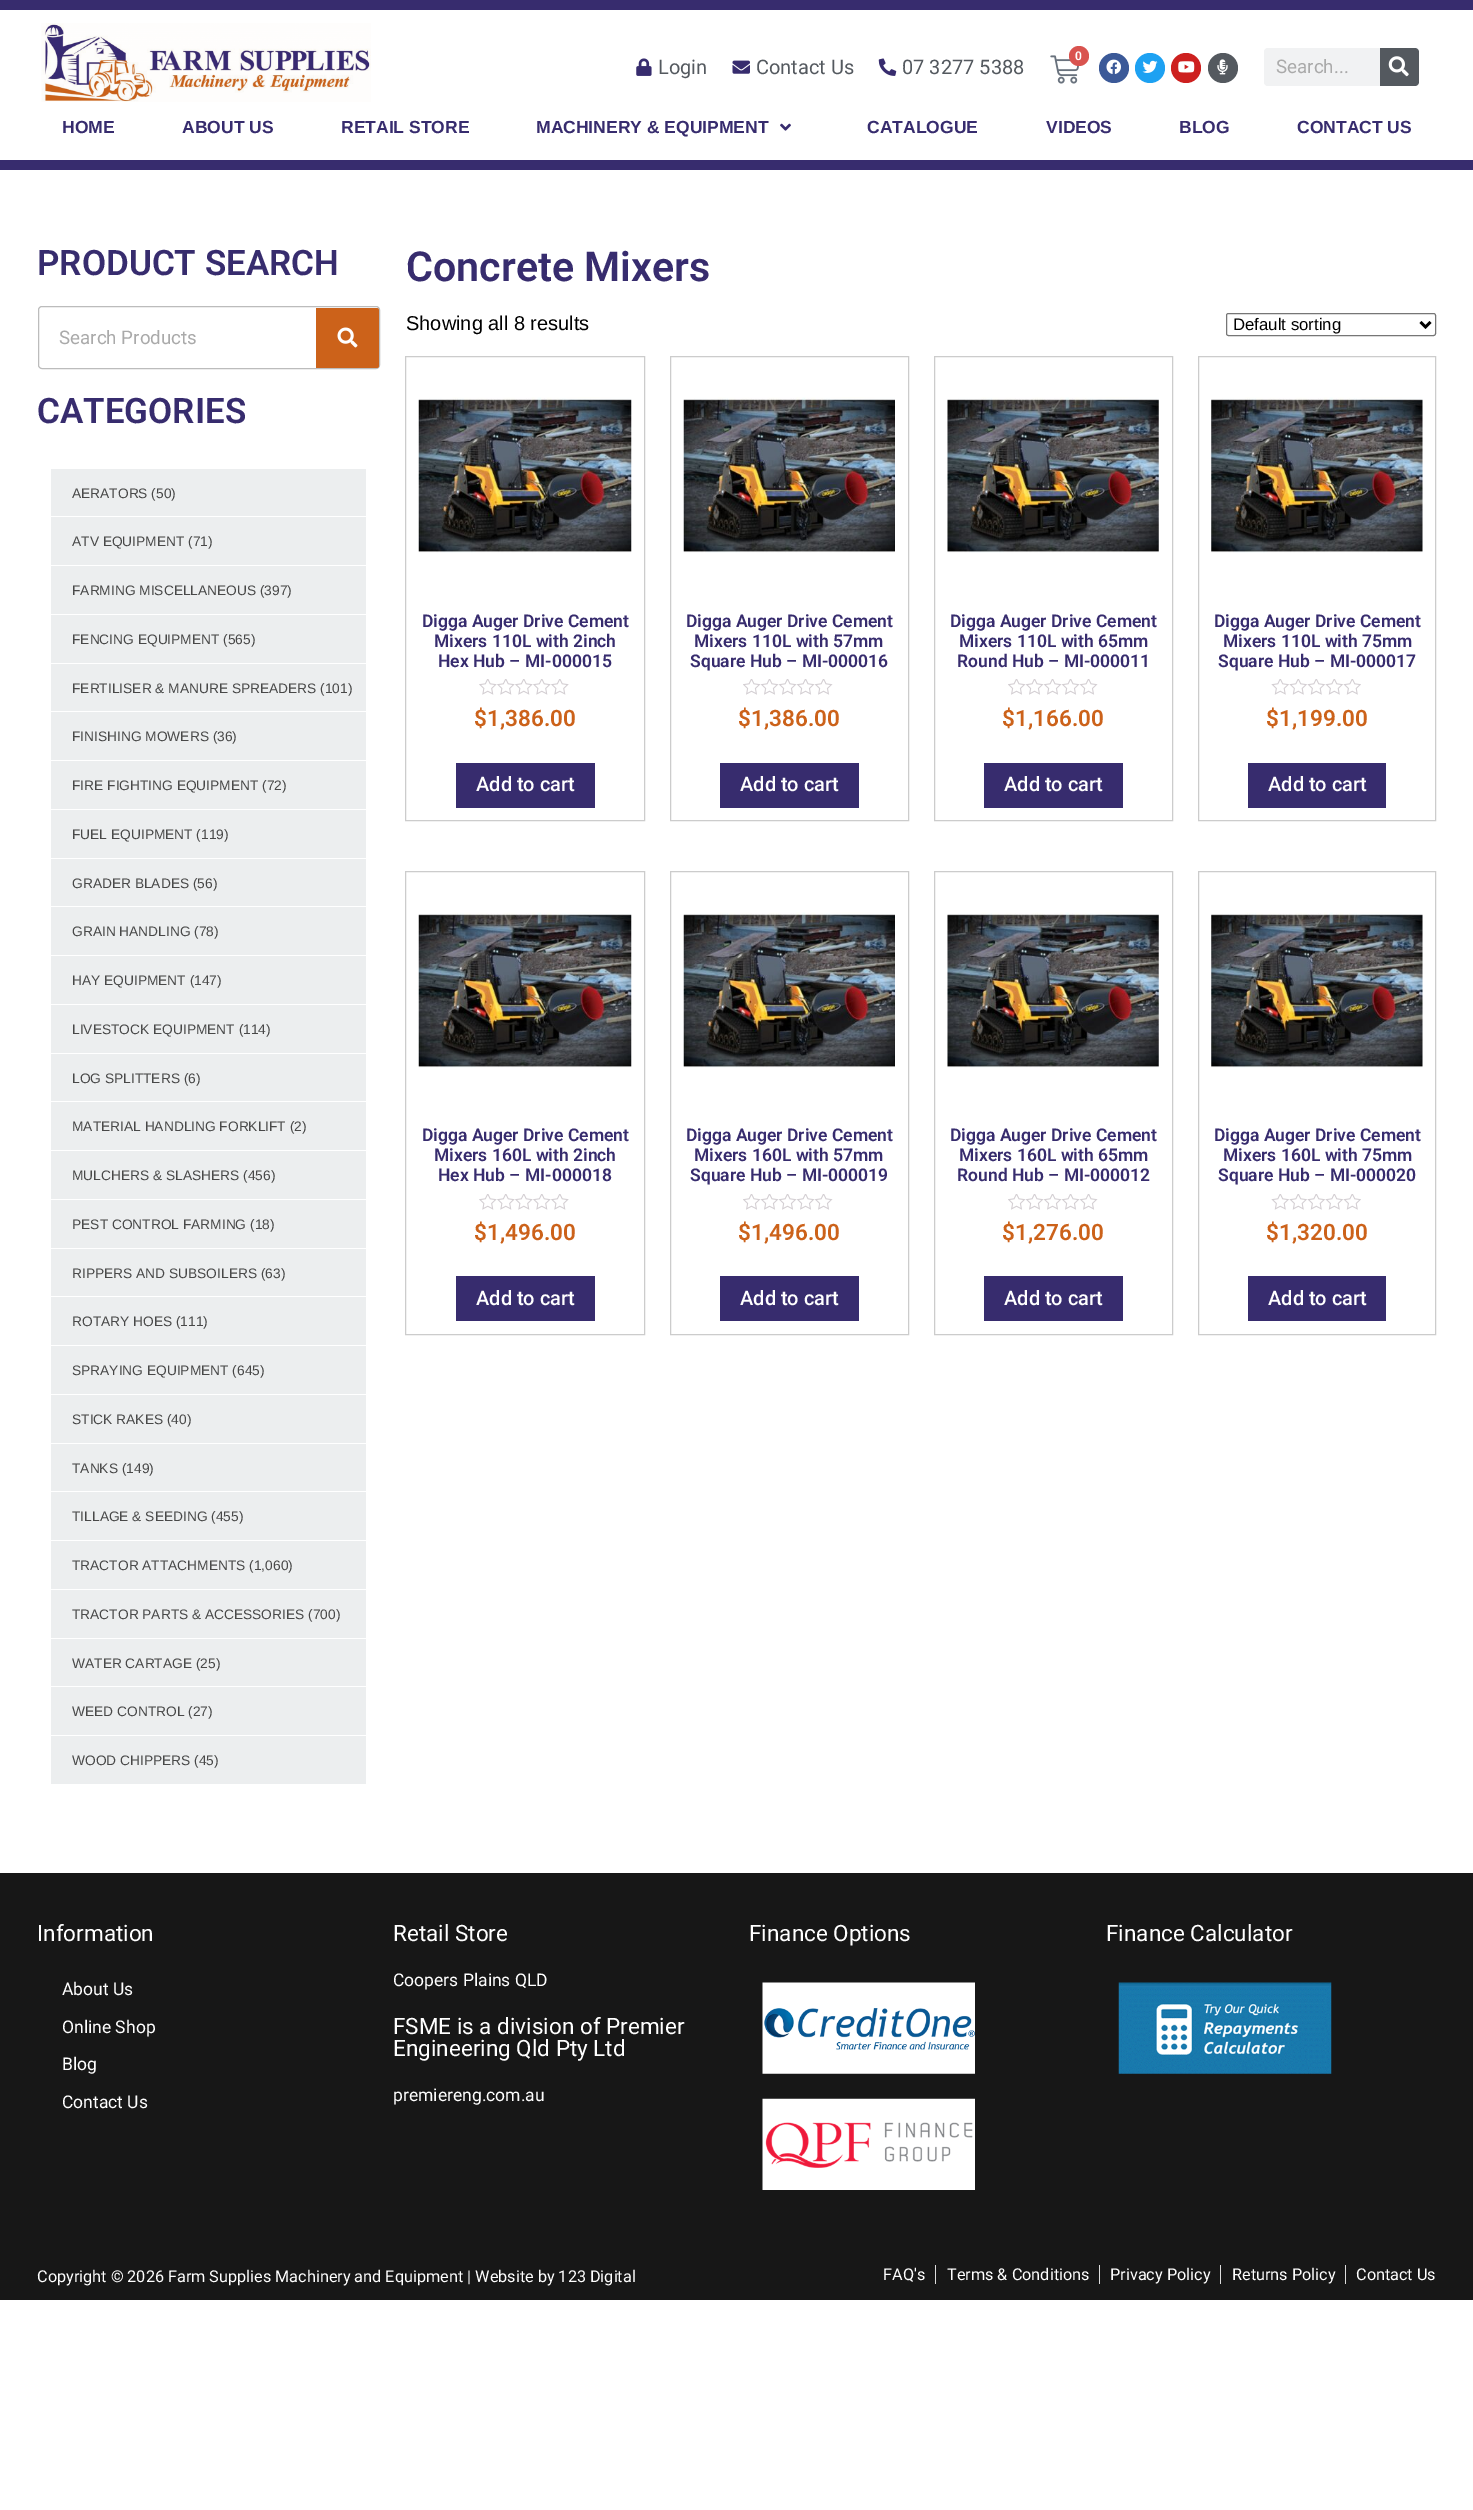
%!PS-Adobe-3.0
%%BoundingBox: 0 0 1473 2510
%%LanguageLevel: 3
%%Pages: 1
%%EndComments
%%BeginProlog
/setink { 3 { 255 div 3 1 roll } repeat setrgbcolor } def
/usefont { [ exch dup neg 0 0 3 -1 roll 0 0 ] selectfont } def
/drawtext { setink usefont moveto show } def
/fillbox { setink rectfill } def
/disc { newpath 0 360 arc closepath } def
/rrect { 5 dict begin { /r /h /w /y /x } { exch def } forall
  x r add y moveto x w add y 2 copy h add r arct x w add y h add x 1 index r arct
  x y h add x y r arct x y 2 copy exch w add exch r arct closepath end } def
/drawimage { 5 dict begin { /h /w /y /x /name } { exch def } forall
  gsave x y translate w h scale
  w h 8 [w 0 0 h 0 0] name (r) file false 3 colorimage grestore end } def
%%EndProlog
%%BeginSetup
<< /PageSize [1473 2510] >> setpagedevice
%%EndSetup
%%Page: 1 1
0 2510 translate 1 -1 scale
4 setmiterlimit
0 0 1473 2510 255 255 255 fillbox
0 0 1473 10 55 44 110 fillbox
0 160 1473 10 55 44 110 fillbox
(assets/img1.rgb) 41 23 330 79 drawimage
(assets/img2.rgb) 636 58 16 18 drawimage
(Login) 658 74 /Roboto-Regular 20 84 89 95 drawtext
(assets/img3.rgb) 732 60 18 14 drawimage
(Contact Us) 756 74 /Roboto-Regular 20 84 89 95 drawtext
(assets/img4.rgb) 878 58 19 18 drawimage
(07 3277 5388) 902 74 /Roboto-Regular 20 84 89 95 drawtext
(assets/img5.rgb) 1050 55 30 29 drawimage
217 83 79 setink
1079 56 10 disc fill
(0) 1075 60 /Roboto-SemiBold 12 255 255 255 drawtext
59 89 152 setink
1114 68 15 disc fill
(assets/img6.rgb) 1106 59 15 15 drawimage
29 161 242 setink
1150 68 15 disc fill
(assets/img7.rgb) 1142 60 16 13 drawimage
205 32 31 setink
1186 68 15 disc fill
(assets/img8.rgb) 1178 61 17 12 drawimage
84 89 95 setink
1223 68 15 disc fill
(assets/img9.rgb) 1217 59 11 16 drawimage
241 242 243 setink
1264 48 155 38 4 rrect fill
(Search...) 1276 73 /Roboto-Regular 18.75 170 170 170 drawtext
84 89 95 setink
1380 48 moveto 1415 48 lineto 1417 48 1419 50 1419 52 curveto 1419 82 lineto 1419 84 1417 86 1415 86 curveto 1380 86 lineto closepath fill
(assets/img10.rgb) 1388 56 21 21 drawimage
(HOME) 62 133 /LiberationSans-Bold 17.5 55 44 110 drawtext
(ABOUT US) 182 133 /LiberationSans-Bold 17.5 55 44 110 drawtext
(RETAIL STORE) 341 133 /LiberationSans-Bold 17.5 55 44 110 drawtext
(MACHINERY & EQUIPMENT) 536 133 /LiberationSans-Bold 17.5 55 44 110 drawtext
(assets/img11.rgb) 780 123 11 8 drawimage
(CATALOGUE) 867 133 /LiberationSans-Bold 17.5 55 44 110 drawtext
(VIDEOS) 1046 133 /LiberationSans-Bold 17.5 55 44 110 drawtext
(BLOG) 1179 133 /LiberationSans-Bold 17.5 55 44 110 drawtext
(CONTACT US) 1297 133 /LiberationSans-Bold 17.5 55 44 110 drawtext
(PRODUCT SEARCH) 37 275 /Roboto-SemiBold 35 55 44 110 drawtext
188 188 188 setink
38.5 306.5 341 62 3.5 rrect stroke
(Search Products) 59 344 /Roboto-Regular 18.75 170 170 170 drawtext
204 98 26 setink
316 308 moveto 376.5 308 lineto 378 308 379 309 379 310.5 curveto 379 365.5 lineto 379 367 378 368 376.5 368 curveto 316 368 lineto closepath fill
(assets/img12.rgb) 337 327 21 21 drawimage
(CATEGORIES) 37 423 /Roboto-SemiBold 35 55 44 110 drawtext
51 469 315 96 236 238 239 fillbox
51 516 315 1 255 255 255 fillbox
(AERATORS \(50\)) 72 498 /LiberationSans-Regular 13.75 72 72 72 drawtext
(ATV EQUIPMENT \(71\)) 72 546 /LiberationSans-Regular 13.75 72 72 72 drawtext
51 566 315 48 236 238 239 fillbox
(FARMING MISCELLANEOUS \(397\)) 72 595 /LiberationSans-Regular 13.75 72 72 72 drawtext
51 615 315 48 236 238 239 fillbox
(FENCING EQUIPMENT \(565\)) 72 644 /LiberationSans-Regular 13.75 72 72 72 drawtext
51 664 315 96 236 238 239 fillbox
51 711 315 1 255 255 255 fillbox
(FERTILISER & MANURE SPREADERS \(101\)) 72 693 /LiberationSans-Regular 13.75 72 72 72 drawtext
(FINISHING MOWERS \(36\)) 72 741 /LiberationSans-Regular 13.75 72 72 72 drawtext
51 761 315 48 236 238 239 fillbox
(FIRE FIGHTING EQUIPMENT \(72\)) 72 790 /LiberationSans-Regular 13.75 72 72 72 drawtext
51 810 315 48 236 238 239 fillbox
(FUEL EQUIPMENT \(119\)) 72 839 /LiberationSans-Regular 13.75 72 72 72 drawtext
51 859 315 96 236 238 239 fillbox
51 906 315 1 255 255 255 fillbox
(GRADER BLADES \(56\)) 72 888 /LiberationSans-Regular 13.75 72 72 72 drawtext
(GRAIN HANDLING \(78\)) 72 936 /LiberationSans-Regular 13.75 72 72 72 drawtext
51 956 315 48 236 238 239 fillbox
(HAY EQUIPMENT \(147\)) 72 985 /LiberationSans-Regular 13.75 72 72 72 drawtext
51 1005 315 48 236 238 239 fillbox
(LIVESTOCK EQUIPMENT \(114\)) 72 1034 /LiberationSans-Regular 13.75 72 72 72 drawtext
51 1054 315 96 236 238 239 fillbox
51 1101 315 1 255 255 255 fillbox
(LOG SPLITTERS \(6\)) 72 1083 /LiberationSans-Regular 13.75 72 72 72 drawtext
(MATERIAL HANDLING FORKLIFT \(2\)) 72 1131 /LiberationSans-Regular 13.75 72 72 72 drawtext
51 1151 315 48 236 238 239 fillbox
(MULCHERS & SLASHERS \(456\)) 72 1180 /LiberationSans-Regular 13.75 72 72 72 drawtext
51 1200 315 48 236 238 239 fillbox
(PEST CONTROL FARMING \(18\)) 72 1229 /LiberationSans-Regular 13.75 72 72 72 drawtext
51 1249 315 96 236 238 239 fillbox
51 1296 315 1 255 255 255 fillbox
(RIPPERS AND SUBSOILERS \(63\)) 72 1278 /LiberationSans-Regular 13.75 72 72 72 drawtext
(ROTARY HOES \(111\)) 72 1326 /LiberationSans-Regular 13.75 72 72 72 drawtext
51 1346 315 48 236 238 239 fillbox
(SPRAYING EQUIPMENT \(645\)) 72 1375 /LiberationSans-Regular 13.75 72 72 72 drawtext
51 1395 315 48 236 238 239 fillbox
(STICK RAKES \(40\)) 72 1424 /LiberationSans-Regular 13.75 72 72 72 drawtext
51 1444 315 96 236 238 239 fillbox
51 1491 315 1 255 255 255 fillbox
(TANKS \(149\)) 72 1473 /LiberationSans-Regular 13.75 72 72 72 drawtext
(TILLAGE & SEEDING \(455\)) 72 1521 /LiberationSans-Regular 13.75 72 72 72 drawtext
51 1541 315 48 236 238 239 fillbox
(TRACTOR ATTACHMENTS \(1,060\)) 72 1570 /LiberationSans-Regular 13.75 72 72 72 drawtext
51 1590 315 48 236 238 239 fillbox
(TRACTOR PARTS & ACCESSORIES \(700\)) 72 1619 /LiberationSans-Regular 13.75 72 72 72 drawtext
51 1639 315 96 236 238 239 fillbox
51 1686 315 1 255 255 255 fillbox
(WATER CARTAGE \(25\)) 72 1668 /LiberationSans-Regular 13.75 72 72 72 drawtext
(WEED CONTROL \(27\)) 72 1716 /LiberationSans-Regular 13.75 72 72 72 drawtext
51 1736 315 48 236 238 239 fillbox
(WOOD CHIPPERS \(45\)) 72 1765 /LiberationSans-Regular 13.75 72 72 72 drawtext
(Concrete Mixers) 406 281 /Roboto-SemiBold 41.25 55 44 110 drawtext
(Showing all 8 results) 406 330 /LiberationSans-Regular 20 0 0 0 drawtext
118 118 118 setink
1226.5 313.5 209 22 2 rrect stroke
0 0 0 setink
2.5 setlinewidth
1420.5 322 moveto 1425.5 327 lineto 1430.5 322 lineto stroke
(Default sorting) 1233 330 /LiberationSans-Regular 16.75 0 0 0 drawtext
204 204 204 setink
1 setlinewidth
405.5 356.5 239 464 rectstroke
(assets/img13.rgb) 418 397 214 156 drawimage
(Digga Auger Drive Cement) 422 627 /Roboto-SemiBold 17.5 55 44 110 drawtext
(Mixers 110L with 2inch) 434 647 /Roboto-SemiBold 17.5 55 44 110 drawtext
(Hex Hub – MI-000015) 438 667 /Roboto-SemiBold 17.5 55 44 110 drawtext
(assets/img14.rgb) 479 679 90 16 drawimage
($1,386.00) 474 726 /Roboto-SemiBold 22.5 204 98 26 drawtext
456 763 139 45 55 44 110 fillbox
(Add to cart) 476 791 /Roboto-Medium 20 255 255 255 drawtext
204 204 204 setink
670.5 356.5 238 464 rectstroke
(assets/img15.rgb) 683 397 212 156 drawimage
(Digga Auger Drive Cement) 686 627 /Roboto-SemiBold 17.5 55 44 110 drawtext
(Mixers 110L with 57mm) 694 647 /Roboto-SemiBold 17.5 55 44 110 drawtext
(Square Hub – MI-000016) 690 667 /Roboto-SemiBold 17.5 55 44 110 drawtext
(assets/img16.rgb) 743 679 90 16 drawimage
($1,386.00) 738 726 /Roboto-SemiBold 22.5 204 98 26 drawtext
720 763 139 45 55 44 110 fillbox
(Add to cart) 740 791 /Roboto-Medium 20 255 255 255 drawtext
204 204 204 setink
934.5 356.5 238 464 rectstroke
(assets/img17.rgb) 947 397 212 156 drawimage
(Digga Auger Drive Cement) 950 627 /Roboto-SemiBold 17.5 55 44 110 drawtext
(Mixers 110L with 65mm) 959 647 /Roboto-SemiBold 17.5 55 44 110 drawtext
(Round Hub – MI-000011) 957 667 /Roboto-SemiBold 17.5 55 44 110 drawtext
(assets/img16.rgb) 1008 679 90 16 drawimage
($1,166.00) 1002 726 /Roboto-SemiBold 22.5 204 98 26 drawtext
984 763 139 45 55 44 110 fillbox
(Add to cart) 1004 791 /Roboto-Medium 20 255 255 255 drawtext
204 204 204 setink
1198.5 356.5 237 464 rectstroke
(assets/img18.rgb) 1211 397 212 156 drawimage
(Digga Auger Drive Cement) 1214 627 /Roboto-SemiBold 17.5 55 44 110 drawtext
(Mixers 110L with 75mm) 1223 647 /Roboto-SemiBold 17.5 55 44 110 drawtext
(Square Hub – MI-000017) 1218 667 /Roboto-SemiBold 17.5 55 44 110 drawtext
(assets/img19.rgb) 1271 679 90 16 drawimage
($1,199.00) 1266 726 /Roboto-SemiBold 22.5 204 98 26 drawtext
1248 763 138 45 55 44 110 fillbox
(Add to cart) 1268 791 /Roboto-Medium 20 255 255 255 drawtext
204 204 204 setink
405.5 871.5 239 463 rectstroke
(assets/img13.rgb) 418 912 214 156 drawimage
(Digga Auger Drive Cement) 422 1141 /Roboto-SemiBold 17.5 55 44 110 drawtext
(Mixers 160L with 2inch) 434 1161 /Roboto-SemiBold 17.5 55 44 110 drawtext
(Hex Hub – MI-000018) 438 1181 /Roboto-SemiBold 17.5 55 44 110 drawtext
(assets/img14.rgb) 479 1194 90 16 drawimage
($1,496.00) 474 1240 /Roboto-SemiBold 22.5 204 98 26 drawtext
456 1276 139 45 55 44 110 fillbox
(Add to cart) 476 1305 /Roboto-Medium 20 255 255 255 drawtext
204 204 204 setink
670.5 871.5 238 463 rectstroke
(assets/img15.rgb) 683 912 212 156 drawimage
(Digga Auger Drive Cement) 686 1141 /Roboto-SemiBold 17.5 55 44 110 drawtext
(Mixers 160L with 57mm) 694 1161 /Roboto-SemiBold 17.5 55 44 110 drawtext
(Square Hub – MI-000019) 690 1181 /Roboto-SemiBold 17.5 55 44 110 drawtext
(assets/img16.rgb) 743 1194 90 16 drawimage
($1,496.00) 738 1240 /Roboto-SemiBold 22.5 204 98 26 drawtext
720 1276 139 45 55 44 110 fillbox
(Add to cart) 740 1305 /Roboto-Medium 20 255 255 255 drawtext
204 204 204 setink
934.5 871.5 238 463 rectstroke
(assets/img17.rgb) 947 912 212 156 drawimage
(Digga Auger Drive Cement) 950 1141 /Roboto-SemiBold 17.5 55 44 110 drawtext
(Mixers 160L with 65mm) 959 1161 /Roboto-SemiBold 17.5 55 44 110 drawtext
(Round Hub – MI-000012) 957 1181 /Roboto-SemiBold 17.5 55 44 110 drawtext
(assets/img16.rgb) 1008 1194 90 16 drawimage
($1,276.00) 1002 1240 /Roboto-SemiBold 22.5 204 98 26 drawtext
984 1276 139 45 55 44 110 fillbox
(Add to cart) 1004 1305 /Roboto-Medium 20 255 255 255 drawtext
204 204 204 setink
1198.5 871.5 237 463 rectstroke
(assets/img18.rgb) 1211 912 212 156 drawimage
(Digga Auger Drive Cement) 1214 1141 /Roboto-SemiBold 17.5 55 44 110 drawtext
(Mixers 160L with 75mm) 1223 1161 /Roboto-SemiBold 17.5 55 44 110 drawtext
(Square Hub – MI-000020) 1218 1181 /Roboto-SemiBold 17.5 55 44 110 drawtext
(assets/img19.rgb) 1271 1194 90 16 drawimage
($1,320.00) 1266 1240 /Roboto-SemiBold 22.5 204 98 26 drawtext
1248 1276 138 45 55 44 110 fillbox
(Add to cart) 1268 1305 /Roboto-Medium 20 255 255 255 drawtext
0 1873 1473 427 23 23 23 fillbox
(Information) 37 1941 /Roboto-Regular 22.5 255 255 255 drawtext
(About Us) 62 1995 /Roboto-Regular 17.5 255 255 255 drawtext
(Online Shop) 62 2033 /Roboto-Regular 17.5 255 255 255 drawtext
(Blog) 62 2070 /Roboto-Regular 17.5 255 255 255 drawtext
(Contact Us) 62 2108 /Roboto-Regular 17.5 255 255 255 drawtext
(Retail Store) 393 1941 /Roboto-Regular 22.5 255 255 255 drawtext
(Coopers Plains QLD) 393 1986 /Roboto-Regular 17.5 255 255 255 drawtext
(FSME is a division of Premier) 393 2034 /Roboto-Regular 22.5 255 255 255 drawtext
(Engineering Qld Pty Ltd) 393 2056 /Roboto-Regular 22.5 255 255 255 drawtext
(premiereng.com.au) 393 2101 /Roboto-Regular 17.5 255 255 255 drawtext
(Finance Options) 749 1941 /Roboto-Regular 22.5 255 255 255 drawtext
(assets/img20.rgb) 762 1982 213 92 drawimage
(assets/img21.rgb) 762 2098 213 92 drawimage
(Finance Calculator) 1106 1941 /Roboto-Regular 22.5 255 255 255 drawtext
(assets/img22.rgb) 1118 1982 214 92 drawimage
(Copyright © 2026 Farm Supplies Machinery and Equipment | Website by 123 Digital) 37 2282 /Roboto-Regular 16.25 255 255 255 drawtext
(FAQ's) 883 2280 /Roboto-Regular 16.25 255 255 255 drawtext
935 2265 1 19 221 221 221 fillbox
(Terms & Conditions) 947 2280 /Roboto-Regular 16.25 255 255 255 drawtext
1099 2265 1 19 221 221 221 fillbox
(Privacy Policy) 1110 2280 /Roboto-Regular 16.25 255 255 255 drawtext
1220 2265 1 19 221 221 221 fillbox
(Returns Policy) 1232 2280 /Roboto-Regular 16.25 255 255 255 drawtext
1345 2265 1 19 221 221 221 fillbox
(Contact Us) 1356 2280 /Roboto-Regular 16.25 255 255 255 drawtext
showpage
%%EOF
